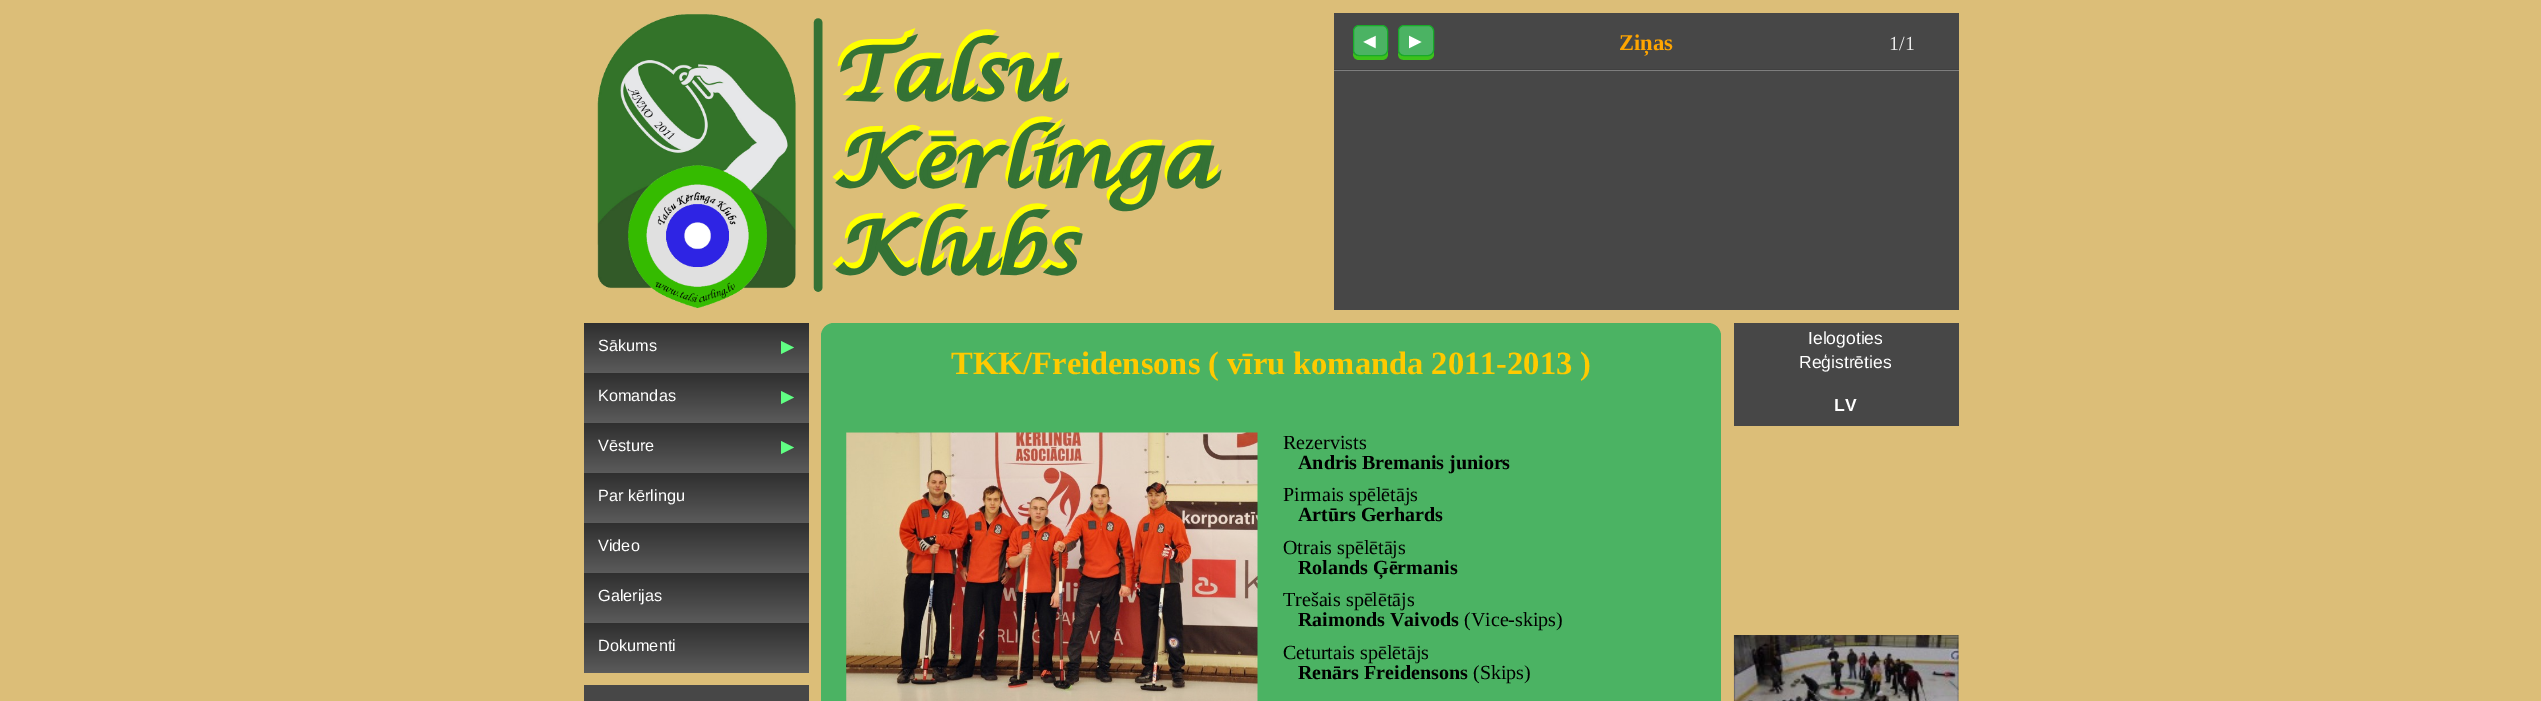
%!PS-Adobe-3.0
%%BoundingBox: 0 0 2541 701
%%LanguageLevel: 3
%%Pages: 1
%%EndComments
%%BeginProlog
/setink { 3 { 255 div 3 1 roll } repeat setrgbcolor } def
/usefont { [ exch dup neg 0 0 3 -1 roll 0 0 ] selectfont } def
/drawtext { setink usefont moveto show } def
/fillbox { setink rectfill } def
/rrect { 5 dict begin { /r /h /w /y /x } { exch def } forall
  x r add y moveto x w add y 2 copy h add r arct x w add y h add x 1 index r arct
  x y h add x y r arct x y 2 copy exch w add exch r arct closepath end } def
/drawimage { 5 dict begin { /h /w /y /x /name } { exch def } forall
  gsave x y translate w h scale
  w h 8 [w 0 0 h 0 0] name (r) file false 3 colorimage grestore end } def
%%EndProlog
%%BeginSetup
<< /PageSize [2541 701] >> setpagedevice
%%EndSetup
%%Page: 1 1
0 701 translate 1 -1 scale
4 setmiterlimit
0 0 2541 701 220 190 120 fillbox
(assets/img1.rgb) 597 14 199 295 drawimage
(assets/img2.rgb) 813 18 409 274 drawimage
1334 13 625 297 71 71 71 fillbox
61 194 27 setink
1353 52.5 moveto 1353 54 lineto 1353 57.5 1355.5 60 1359 60 curveto 1382 60 lineto 1385.5 60 1388 57.5 1388 54 curveto 1388 35 lineto 1387.5 32.5 lineto 1387.5 50 lineto 1387.5 53.5 1384.5 56 1381 56 curveto 1359 56 lineto 1356 56 1354 54.5 1353 52.5 curveto closepath fill
75 179 99 setink
1353.5 25.5 34 30 5.5 rrect gsave fill grestore
24 171 41 setink
stroke
(◄) 1359 48 /LiberationSans-Bold 21 255 255 255 drawtext
61 194 27 setink
1398 52.5 moveto 1398 60 1401.5 60 1408 60 curveto 1424 60 lineto 1428 60 1433 60 1434 55 curveto 1434 38 lineto 1434 33.5 lineto 1434 50 lineto 1434 53.5 1431 56 1427.5 56 curveto 1404 56 lineto 1401 56 1399 54.5 1398 52.5 curveto closepath fill
75 179 99 setink
1398.5 25.5 35 30 5.5 rrect gsave fill grestore
24 171 41 setink
stroke
(►) 1405 48 /LiberationSans-Bold 21 255 255 255 drawtext
(Ziņas) 1619 50 /LiberationSerif-Bold 22.5 255 165 0 drawtext
(1/1) 1889 50 /LiberationSerif-Regular 20 238 238 238 drawtext
1334 69 625 1 64 64 64 fillbox
1334 70 625 1 126 126 126 fillbox
gsave 584 323 moveto 809 323 lineto 809 373 lineto 584 373 lineto closepath clip newpath
<< /ShadingType 2 /ColorSpace /DeviceRGB /Coords [696 323 696 373] /Extend [true true] /Function << /FunctionType 2 /Domain [0 1] /C0 [0.184 0.184 0.184] /C1 [0.357 0.357 0.357] /N 1 >> >> shfill grestore
(Sākums) 598 351 /LiberationSans-Regular 16.25 255 255 255 drawtext
96 255 131 setink
781 354 moveto 781 341 lineto 794 347.5 lineto closepath fill
gsave 584 373 moveto 809 373 lineto 809 423 lineto 584 423 lineto closepath clip newpath
<< /ShadingType 2 /ColorSpace /DeviceRGB /Coords [696 373 696 423] /Extend [true true] /Function << /FunctionType 2 /Domain [0 1] /C0 [0.184 0.184 0.184] /C1 [0.357 0.357 0.357] /N 1 >> >> shfill grestore
(Komandas) 598 401 /LiberationSans-Regular 16.25 255 255 255 drawtext
96 255 131 setink
781 404 moveto 781 391 lineto 794 397.5 lineto closepath fill
gsave 584 423 moveto 809 423 lineto 809 473 lineto 584 473 lineto closepath clip newpath
<< /ShadingType 2 /ColorSpace /DeviceRGB /Coords [696 423 696 473] /Extend [true true] /Function << /FunctionType 2 /Domain [0 1] /C0 [0.184 0.184 0.184] /C1 [0.357 0.357 0.357] /N 1 >> >> shfill grestore
(Vēsture) 598 451 /LiberationSans-Regular 16.25 255 255 255 drawtext
96 255 131 setink
781 454 moveto 781 441 lineto 794 447.5 lineto closepath fill
gsave 584 473 moveto 809 473 lineto 809 523 lineto 584 523 lineto closepath clip newpath
<< /ShadingType 2 /ColorSpace /DeviceRGB /Coords [696 473 696 523] /Extend [true true] /Function << /FunctionType 2 /Domain [0 1] /C0 [0.184 0.184 0.184] /C1 [0.357 0.357 0.357] /N 1 >> >> shfill grestore
(Par kērlingu) 598 501 /LiberationSans-Regular 16.25 255 255 255 drawtext
gsave 584 523 moveto 809 523 lineto 809 573 lineto 584 573 lineto closepath clip newpath
<< /ShadingType 2 /ColorSpace /DeviceRGB /Coords [696 523 696 573] /Extend [true true] /Function << /FunctionType 2 /Domain [0 1] /C0 [0.184 0.184 0.184] /C1 [0.357 0.357 0.357] /N 1 >> >> shfill grestore
(Video) 598 551 /LiberationSans-Regular 16.25 255 255 255 drawtext
gsave 584 573 moveto 809 573 lineto 809 623 lineto 584 623 lineto closepath clip newpath
<< /ShadingType 2 /ColorSpace /DeviceRGB /Coords [696 573 696 623] /Extend [true true] /Function << /FunctionType 2 /Domain [0 1] /C0 [0.184 0.184 0.184] /C1 [0.357 0.357 0.357] /N 1 >> >> shfill grestore
(Galerijas) 598 601 /LiberationSans-Regular 16.25 255 255 255 drawtext
gsave 584 623 moveto 809 623 lineto 809 673 lineto 584 673 lineto closepath clip newpath
<< /ShadingType 2 /ColorSpace /DeviceRGB /Coords [696 623 696 673] /Extend [true true] /Function << /FunctionType 2 /Domain [0 1] /C0 [0.184 0.184 0.184] /C1 [0.357 0.357 0.357] /N 1 >> >> shfill grestore
(Dokumenti) 598 651 /LiberationSans-Regular 16.25 255 255 255 drawtext
584 685 225 16 71 71 71 fillbox
75 179 99 setink
821 323 900 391 13 rrect fill
(TKK/Freidensons \( vīru komanda 2011-2013 \)) 951 374 /LiberationSerif-Bold 32.5 255 202 0 drawtext
(assets/img3.rgb) 846 432 412 269 drawimage
(Rezervists) 1283 449 /LiberationSerif-Regular 20 0 0 0 drawtext
(Andris Bremanis juniors) 1298 469 /LiberationSerif-Bold 20 0 0 0 drawtext
(Pirmais spēlētājs) 1283 501 /LiberationSerif-Regular 20 0 0 0 drawtext
(Artūrs Gerhards) 1298 521 /LiberationSerif-Bold 20 0 0 0 drawtext
(Otrais spēlētājs) 1283 554 /LiberationSerif-Regular 20 0 0 0 drawtext
(Rolands Ģērmanis) 1298 574 /LiberationSerif-Bold 20 0 0 0 drawtext
(Trešais spēlētājs) 1283 606 /LiberationSerif-Regular 20 0 0 0 drawtext
(Raimonds Vaivods) 1298 626 /LiberationSerif-Bold 20 0 0 0 drawtext
(\(Vice-skips\)) 1464 626 /LiberationSerif-Regular 20 0 0 0 drawtext
(Ceturtais spēlētājs) 1283 659 /LiberationSerif-Regular 20 0 0 0 drawtext
(Renārs Freidensons) 1298 679 /LiberationSerif-Bold 20 0 0 0 drawtext
(\(Skips\)) 1473 679 /LiberationSerif-Regular 20 0 0 0 drawtext
1734 323 225 103 71 71 71 fillbox
(Ielogoties) 1808 344 /LiberationSans-Regular 17.5 255 255 255 drawtext
(Reģistrēties) 1799 368 /LiberationSans-Regular 17.5 255 255 255 drawtext
(LV) 1834 411 /LiberationSans-Bold 17.5 255 255 255 drawtext
(assets/img4.rgb) 1733 635 226 66 drawimage
showpage
%%EOF
